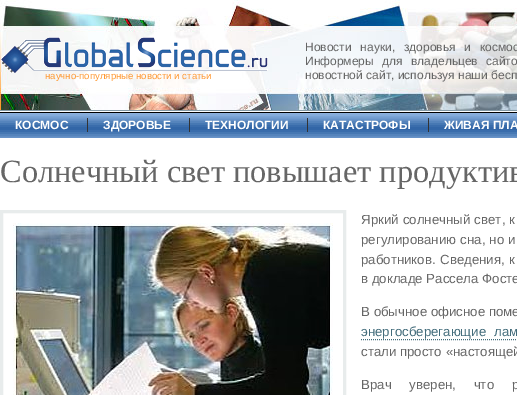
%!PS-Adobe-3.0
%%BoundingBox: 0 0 517 395
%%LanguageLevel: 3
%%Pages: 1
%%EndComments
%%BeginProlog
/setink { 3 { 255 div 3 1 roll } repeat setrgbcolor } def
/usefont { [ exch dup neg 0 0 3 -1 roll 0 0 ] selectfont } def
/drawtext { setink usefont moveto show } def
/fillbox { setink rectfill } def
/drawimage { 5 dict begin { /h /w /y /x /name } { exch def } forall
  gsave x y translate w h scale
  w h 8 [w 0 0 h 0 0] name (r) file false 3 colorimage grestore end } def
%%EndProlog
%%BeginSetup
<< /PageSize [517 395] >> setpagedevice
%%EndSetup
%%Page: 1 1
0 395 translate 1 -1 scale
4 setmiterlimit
0 0 517 395 255 255 255 fillbox
(assets/img1.rgb) 0 0 517 110 drawimage
(assets/img2.rgb) 1 37 267 36 drawimage
(научно-популярные новости и статьи) 45 79 /LiberationSans-Regular 9.6 255 153 51 drawtext
/LiberationSans-Regular 12 usefont
102 102 102 setink
305 51 moveto 5.5 0 32 (Новости науки, здоровья и космос) widthshow
305 65 moveto 5 0 32 (Информеры для владельцев сайто) widthshow
(новостной сайт, используя наши бесп) 305 79 /LiberationSans-Regular 12 102 102 102 drawtext
(assets/img3.rgb) 0 110 517 28 drawimage
(КОСМОС) 15 129 /LiberationSans-Bold 12 255 255 255 drawtext
(ЗДОРОВЬЕ) 103 129 /LiberationSans-Bold 12 255 255 255 drawtext
87 118 1 14 51 51 51 fillbox
(ТЕХНОЛОГИИ) 205 129 /LiberationSans-Bold 12 255 255 255 drawtext
189 118 1 14 51 51 51 fillbox
(КАТАСТРОФЫ) 323 129 /LiberationSans-Bold 12 255 255 255 drawtext
307 118 1 14 51 51 51 fillbox
(ЖИВАЯ ПЛА) 444 129 /LiberationSans-Bold 12 255 255 255 drawtext
428 118 1 14 51 51 51 fillbox
(Солнечный свет повышает продуктив) 0 182 /LiberationSerif-Regular 32.4 102 102 102 drawtext
232 236 236 setink
3 setlinewidth
1.5 211.5 343 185 rectstroke
(assets/img4.rgb) 13 223 320 172 drawimage
/LiberationSans-Regular 13.25 usefont
102 102 102 setink
361 224 moveto 0.5 0 32 (Яркий солнечный свет, к) widthshow
361 244 moveto 0.5 0 32 (регулированию сна, но и) widthshow
361 264 moveto 1 0 32 (работников. Сведения, к) widthshow
(в докладе Рассела Фосте) 361 283 /LiberationSans-Regular 13.25 102 102 102 drawtext
(В обычное офисное поме) 361 316 /LiberationSans-Regular 13.25 102 102 102 drawtext
67 108 123 setink
361 336 moveto 4 0 32 (энергосберегающие лам) widthshow
1 setlinewidth
[1 1] 0 setdash
361 339.5 moveto 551 339.5 lineto stroke
(стали просто «настоящей) 361 356 /LiberationSans-Regular 13.25 102 102 102 drawtext
361 389 moveto 14 0 32 (Врач уверен, что р) widthshow
showpage
%%EOF
